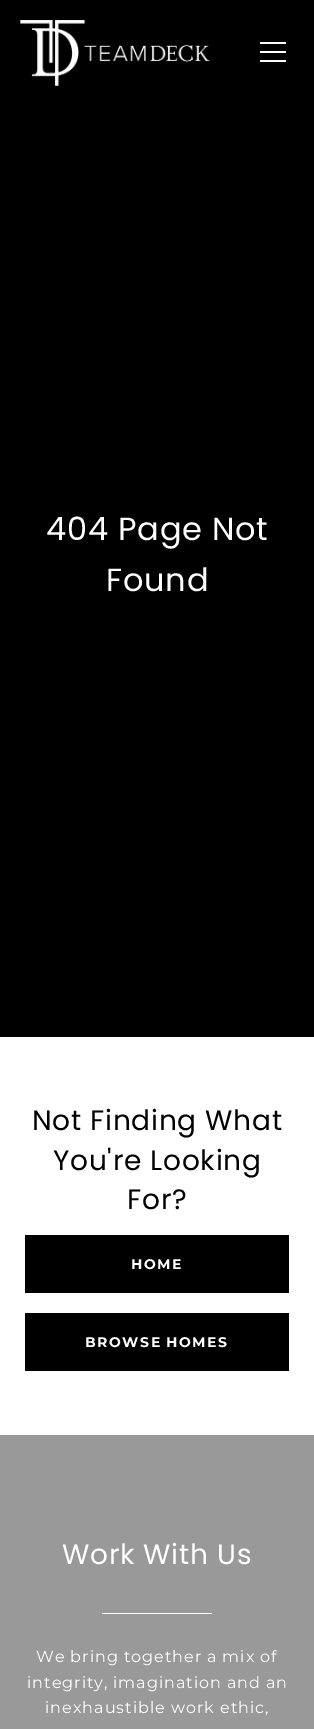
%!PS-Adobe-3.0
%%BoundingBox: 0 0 314 1729
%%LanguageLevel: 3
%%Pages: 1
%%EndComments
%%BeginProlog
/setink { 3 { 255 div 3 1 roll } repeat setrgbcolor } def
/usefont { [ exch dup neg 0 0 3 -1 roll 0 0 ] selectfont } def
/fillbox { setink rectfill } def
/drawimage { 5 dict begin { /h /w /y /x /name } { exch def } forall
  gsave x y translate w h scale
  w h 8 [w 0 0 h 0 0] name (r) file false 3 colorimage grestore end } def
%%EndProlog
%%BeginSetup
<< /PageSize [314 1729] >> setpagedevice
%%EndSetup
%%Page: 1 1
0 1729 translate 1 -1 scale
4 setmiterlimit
0 0 314 1729 255 255 255 fillbox
0 0 314 1037 0 0 0 fillbox
(assets/img1.rgb) 20 20 190 66 drawimage
260 51 26 2 255 255 255 fillbox
260 42 26 2 255 255 255 fillbox
260 60 26 2 255 255 255 fillbox
/Poppins-Regular 32 usefont
46 540 moveto 0.75 0 (404 Page Not) ashow
106 591 moveto 0.75 0 (Found) ashow
/Poppins-Regular 28 usefont
0 0 0 setink
32 1130 moveto 0.75 0 (Not Finding What) ashow
53 1170 moveto 0.75 0 (You're Looking) ashow
127 1209 moveto 0.75 0 (For?) ashow
25 1235 264 58 0 0 0 fillbox
/Montserrat-Bold 14 usefont
255 255 255 setink
131 1269 moveto 1.5 0 (HOME) ashow
25 1313 264 58 0 0 0 fillbox
255 255 255 setink
85 1347 moveto -1 0 32 1.5 0 (BROWSE HOMES) awidthshow
0 1435 314 294 153 153 153 fillbox
/Poppins-Regular 28 usefont
255 255 255 setink
62 1564 moveto 0.75 0 (Work With Us) ashow
102 1613 110 1 255 255 255 fillbox
/Montserrat-Regular 16 usefont
36 1662 moveto -0.25 0 32 1 0 (We bring together a mix of) awidthshow
27 1688 moveto -0.5 0 32 1 0 (integrity, imagination and an) awidthshow
45 1713 moveto 1 0 (inexhaustible work ethic,) ashow
showpage
%%EOF
